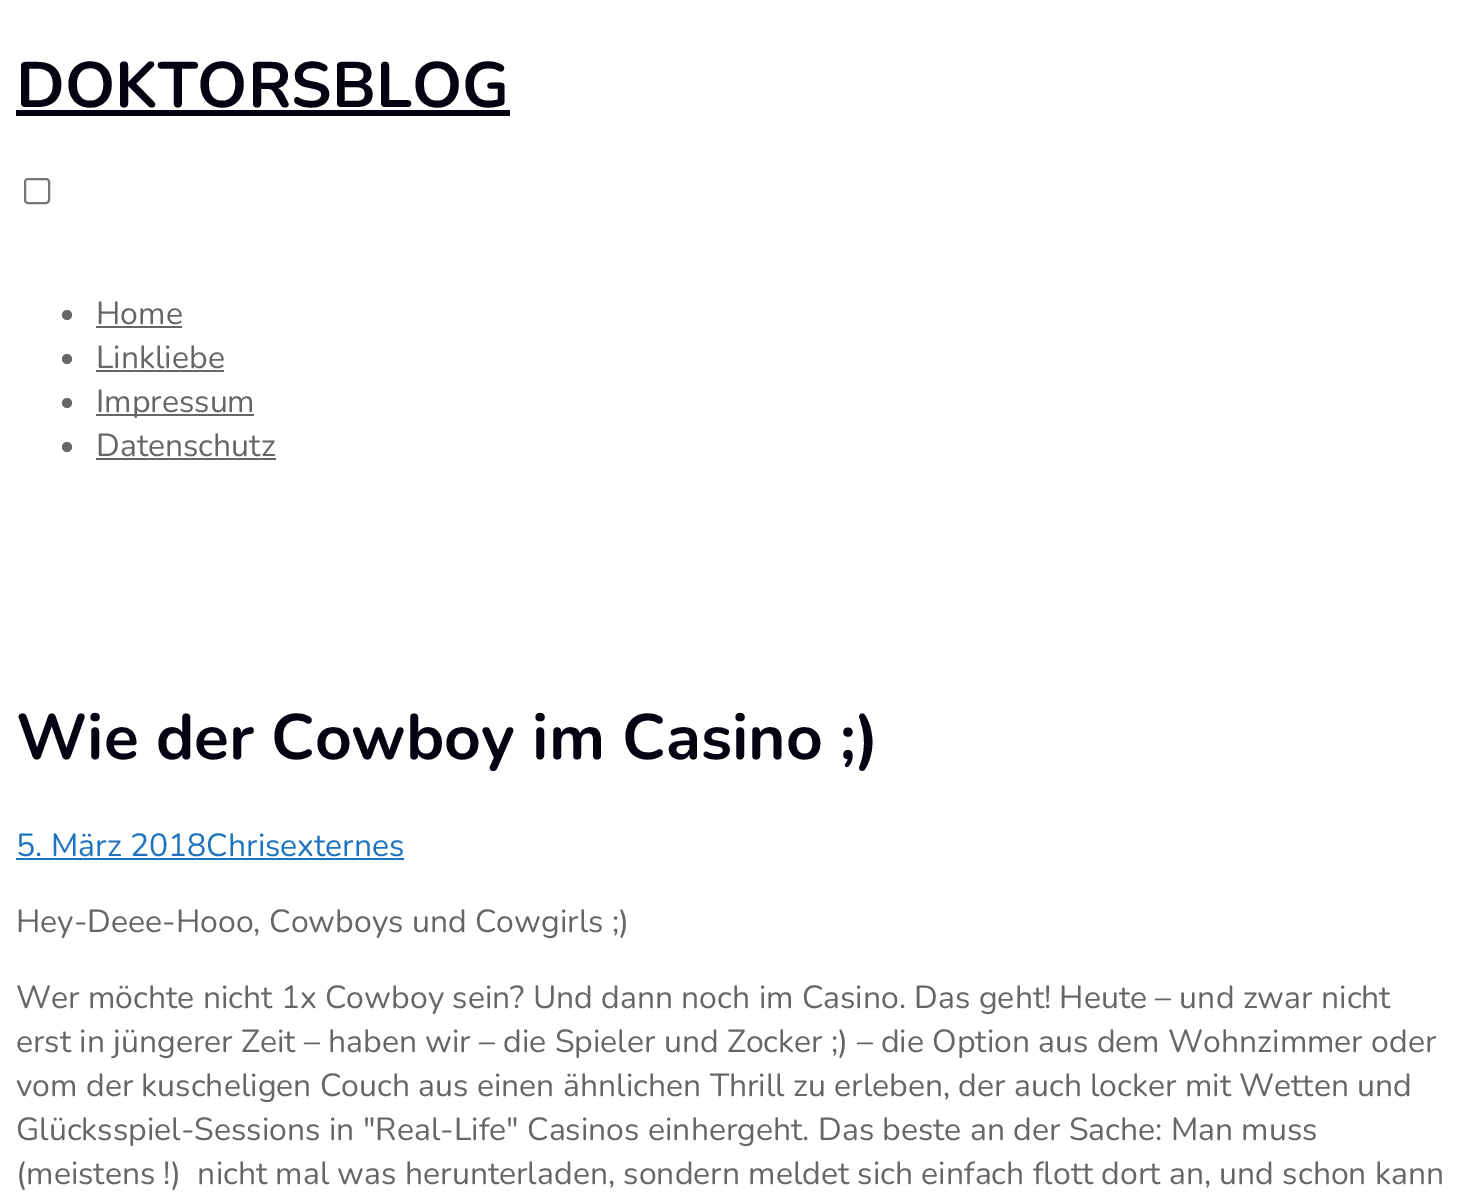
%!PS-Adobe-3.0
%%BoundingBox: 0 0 1468 1202
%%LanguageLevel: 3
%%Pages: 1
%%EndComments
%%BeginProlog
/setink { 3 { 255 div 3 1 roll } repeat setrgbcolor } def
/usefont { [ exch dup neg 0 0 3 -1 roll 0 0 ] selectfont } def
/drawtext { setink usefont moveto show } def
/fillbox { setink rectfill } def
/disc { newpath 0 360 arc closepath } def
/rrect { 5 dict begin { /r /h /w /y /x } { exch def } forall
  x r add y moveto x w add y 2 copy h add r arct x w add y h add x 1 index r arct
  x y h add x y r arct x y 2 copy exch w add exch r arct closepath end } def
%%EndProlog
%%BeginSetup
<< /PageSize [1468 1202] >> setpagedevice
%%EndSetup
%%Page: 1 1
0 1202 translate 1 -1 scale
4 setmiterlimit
0 0 1468 1202 255 255 255 fillbox
(DOKTORSBLOG) 16 107 /Nunito-Bold 64 7 2 17 drawtext
16 110 494 6 7 2 17 fillbox
118 118 118 setink
2 setlinewidth
25 179 24 24 3 rrect stroke
102 102 102 setink
67 315 5 disc fill
(Home) 96 324 /Nunito-Regular 32 102 102 102 drawtext
96 326 86 2 102 102 102 fillbox
67 359 5 disc fill
(Linkliebe) 96 368 /Nunito-Regular 32 102 102 102 drawtext
96 370 128 2 102 102 102 fillbox
67 403 5 disc fill
96 414 158 2 102 102 102 fillbox
(Impressum) 96 412 /Nunito-Regular 32 102 102 102 drawtext
67 447 5 disc fill
(Datenschutz) 96 456 /Nunito-Regular 32 102 102 102 drawtext
96 458 180 2 102 102 102 fillbox
(Wie der Cowboy im Casino ;\)) 16 759 /Nunito-Bold 64 7 2 17 drawtext
(5. März 2018Chrisexternes) 16 856 /Nunito-Regular 32 30 115 190 drawtext
16 858 388 2 30 115 190 fillbox
(Hey-Deee-Hooo, Cowboys und Cowgirls ;\)) 16 932 /Nunito-Regular 32 102 102 102 drawtext
(Wer möchte nicht 1x Cowboy sein? Und dann noch im Casino. Das geht! Heute – und zwar nicht) 16 1008 /Nunito-Regular 32 102 102 102 drawtext
(erst in jüngerer Zeit – haben wir – die Spieler und Zocker ;\) – die Option aus dem Wohnzimmer oder) 16 1052 /Nunito-Regular 32 102 102 102 drawtext
(vom der kuscheligen Couch aus einen ähnlichen Thrill zu erleben, der auch locker mit Wetten und) 16 1096 /Nunito-Regular 32 102 102 102 drawtext
(Glücksspiel-Sessions in "Real-Life" Casinos einhergeht. Das beste an der Sache: Man muss) 16 1140 /Nunito-Regular 32 102 102 102 drawtext
(\(meistens !\)  nicht mal was herunterladen, sondern meldet sich einfach flott dort an, und schon kann) 16 1184 /Nunito-Regular 32 102 102 102 drawtext
showpage
%%EOF
